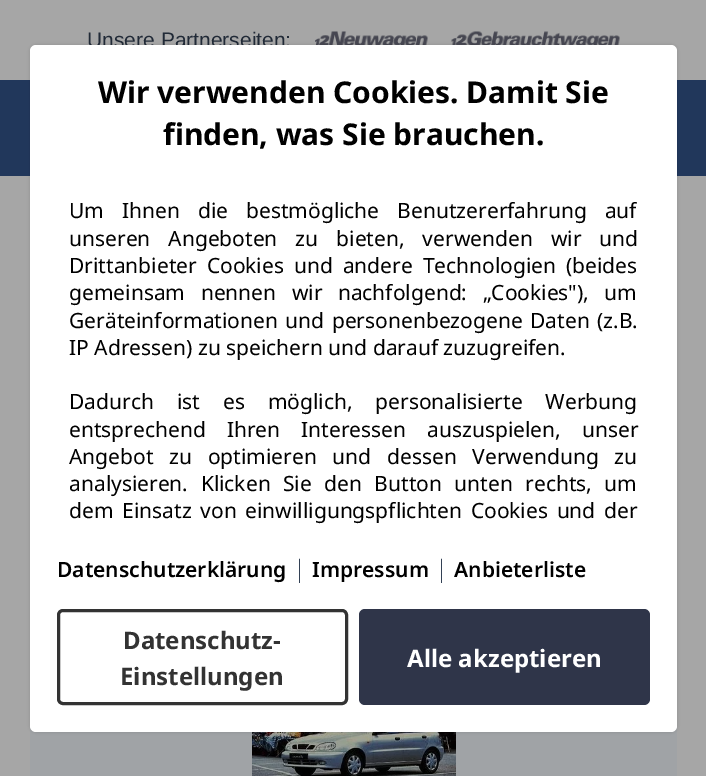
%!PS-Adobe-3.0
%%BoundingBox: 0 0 706 776
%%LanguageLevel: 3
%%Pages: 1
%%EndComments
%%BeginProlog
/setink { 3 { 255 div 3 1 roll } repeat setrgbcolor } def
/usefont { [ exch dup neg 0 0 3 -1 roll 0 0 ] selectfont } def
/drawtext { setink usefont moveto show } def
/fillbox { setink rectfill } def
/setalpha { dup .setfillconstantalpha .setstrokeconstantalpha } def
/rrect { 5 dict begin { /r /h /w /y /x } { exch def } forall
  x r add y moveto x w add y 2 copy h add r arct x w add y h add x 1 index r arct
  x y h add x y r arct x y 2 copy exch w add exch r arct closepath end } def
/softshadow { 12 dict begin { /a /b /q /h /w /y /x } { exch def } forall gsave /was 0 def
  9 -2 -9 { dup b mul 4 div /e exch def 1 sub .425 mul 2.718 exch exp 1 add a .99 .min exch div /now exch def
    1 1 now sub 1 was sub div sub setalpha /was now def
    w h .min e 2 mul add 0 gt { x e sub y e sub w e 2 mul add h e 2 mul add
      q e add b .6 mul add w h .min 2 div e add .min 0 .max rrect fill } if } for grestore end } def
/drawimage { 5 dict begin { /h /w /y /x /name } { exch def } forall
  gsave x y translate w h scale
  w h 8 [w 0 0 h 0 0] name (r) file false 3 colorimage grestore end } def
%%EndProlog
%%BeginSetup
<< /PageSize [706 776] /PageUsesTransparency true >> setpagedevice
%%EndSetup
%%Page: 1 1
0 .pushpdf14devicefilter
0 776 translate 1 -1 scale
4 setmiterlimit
0 0 706 776 166 166 166 fillbox
(Unsere Partnerseiten:) 87 47 /LiberationSans-Regular 21 33 42 55 drawtext
(assets/img1.rgb) 315 31 113 14 drawimage
(assets/img2.rgb) 451 31 169 14 drawimage
0 80 706 96 33 55 91 fillbox
30 726 647 50 160 163 166 fillbox
(assets/img3.rgb) 252 732 204 44 drawimage
0 0 0 setink
30 45 647 687 6 1.5 0.12 softshadow
255 255 255 setink
30 45 647 687 6 rrect fill
(Wir verwenden Cookies. Damit Sie) 98 103 /NotoSans-Bold 30 0 0 0 drawtext
(finden, was Sie brauchen.) 163 145 /NotoSans-Bold 30 0 0 0 drawtext
/NotoSans-Regular 21 usefont
69 218 moveto 12.5 0 32 (Um Ihnen die bestmögliche Benutzererfahrung auf) widthshow
69 246 moveto 12.5 0 32 (unseren Angeboten zu bieten, verwenden wir und) widthshow
69 273 moveto 4.5 0 32 (Drittanbieter Cookies und andere Technologien \(beides) widthshow
69 300 moveto 10 0 32 (gemeinsam nennen wir nachfolgend: „Cookies"\), um) widthshow
69 328 moveto 2 0 32 (Geräteinformationen und personenbezogene Daten \(z.B.) widthshow
(IP Adressen\) zu speichern und darauf zuzugreifen.) 69 355 /NotoSans-Regular 21 0 0 0 drawtext
69 409 moveto 17.5 0 32 (Dadurch ist es möglich, personalisierte Werbung) widthshow
69 437 moveto 15.5 0 32 (entsprechend Ihren Interessen auszuspielen, unser) widthshow
69 464 moveto 10.25 0 32 (Angebot zu optimieren und dessen Verwendung zu) widthshow
69 491 moveto 7 0 32 (analysieren. Klicken Sie den Button unten rechts, um) widthshow
69 518 moveto 3.25 0 32 (dem Einsatz von einwilligungspflichten Cookies und der) widthshow
(Datenschutzerklärung) 57 577 /NotoSans-SemiBold 21 0 0 0 drawtext
(|) 293 577 /NotoSans-Light 24 51 65 85 drawtext
(Impressum) 312 577 /NotoSans-SemiBold 21 0 0 0 drawtext
(|) 435 577 /NotoSans-Light 24 51 65 85 drawtext
(Anbieterliste) 454 577 /NotoSans-SemiBold 21 0 0 0 drawtext
51 51 51 setink
3 setlinewidth
58.5 610.5 288 93 4.5 rrect stroke
(Datenschutz-) 123 649 /NotoSans-Bold 24 51 51 51 drawtext
(Einstellungen) 120 685 /NotoSans-Bold 24 51 51 51 drawtext
47 53 73 setink
359 609 291 96 6 rrect fill
(Alle akzeptieren) 407 667 /NotoSans-Bold 24 255 255 255 drawtext
.poppdf14devicefilter showpage
%%EOF
